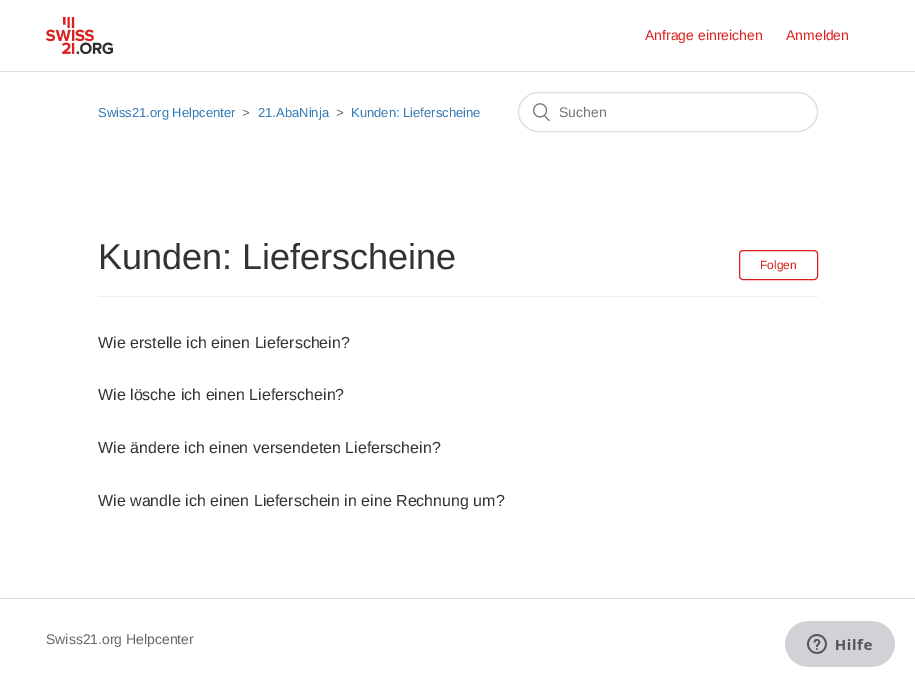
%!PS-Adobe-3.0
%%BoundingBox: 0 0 915 681
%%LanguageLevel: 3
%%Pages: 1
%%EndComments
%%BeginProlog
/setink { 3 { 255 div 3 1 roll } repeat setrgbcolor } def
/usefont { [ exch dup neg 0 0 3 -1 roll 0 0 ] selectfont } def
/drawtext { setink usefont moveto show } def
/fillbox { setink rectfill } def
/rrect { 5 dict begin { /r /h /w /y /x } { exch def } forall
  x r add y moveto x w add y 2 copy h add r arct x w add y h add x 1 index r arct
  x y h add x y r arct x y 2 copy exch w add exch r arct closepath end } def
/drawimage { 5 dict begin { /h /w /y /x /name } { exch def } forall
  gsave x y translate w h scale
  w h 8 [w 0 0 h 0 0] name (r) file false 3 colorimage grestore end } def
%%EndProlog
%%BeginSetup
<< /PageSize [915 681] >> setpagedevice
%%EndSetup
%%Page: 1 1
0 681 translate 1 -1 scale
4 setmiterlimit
0 0 915 681 255 255 255 fillbox
(assets/img1.rgb) 46 17 67 37 drawimage
(Anfrage einreichen) 645 40 /LiberationSans-Regular 14 218 33 29 drawtext
(Anmelden) 786 40 /LiberationSans-Regular 14 218 33 29 drawtext
0 71 915 1 221 221 221 fillbox
(Swiss21.org Helpcenter) 98 117 /LiberationSans-Regular 13 51 122 183 drawtext
(>) 242 117 /LiberationSans-Regular 13 102 102 102 drawtext
(21.AbaNinja) 258 117 /LiberationSans-Regular 13 51 122 183 drawtext
(>) 336 117 /LiberationSans-Regular 13 102 102 102 drawtext
(Kunden: Lieferscheine) 351 117 /LiberationSans-Regular 13 51 122 183 drawtext
221 221 221 setink
518.5 92.5 299 39 19.5 rrect stroke
(assets/img2.rgb) 533 103 17 19 drawimage
(Suchen) 559 117 /LiberationSans-Regular 14 117 117 117 drawtext
98 296 720 1 238 238 238 fillbox
(Kunden: Lieferscheine) 98 269 /LiberationSans-Regular 36 51 51 51 drawtext
218 33 29 setink
739.5 250.5 78 29 3.5 rrect stroke
(Folgen) 760 269 /LiberationSans-Regular 12 218 33 29 drawtext
(Wie erstelle ich einen Lieferschein?) 98 348 /LiberationSans-Regular 16 51 51 51 drawtext
(Wie lösche ich einen Lieferschein?) 98 400 /LiberationSans-Regular 16 51 51 51 drawtext
(Wie ändere ich einen versendeten Lieferschein?) 98 453 /LiberationSans-Regular 16 51 51 51 drawtext
(Wie wandle ich einen Lieferschein in eine Rechnung um?) 98 506 /LiberationSans-Regular 16 51 51 51 drawtext
0 598 915 1 221 221 221 fillbox
(Swiss21.org Helpcenter) 46 644 /LiberationSans-Regular 14 102 102 102 drawtext
(assets/img3.rgb) 785 621 110 46 drawimage
showpage
%%EOF
